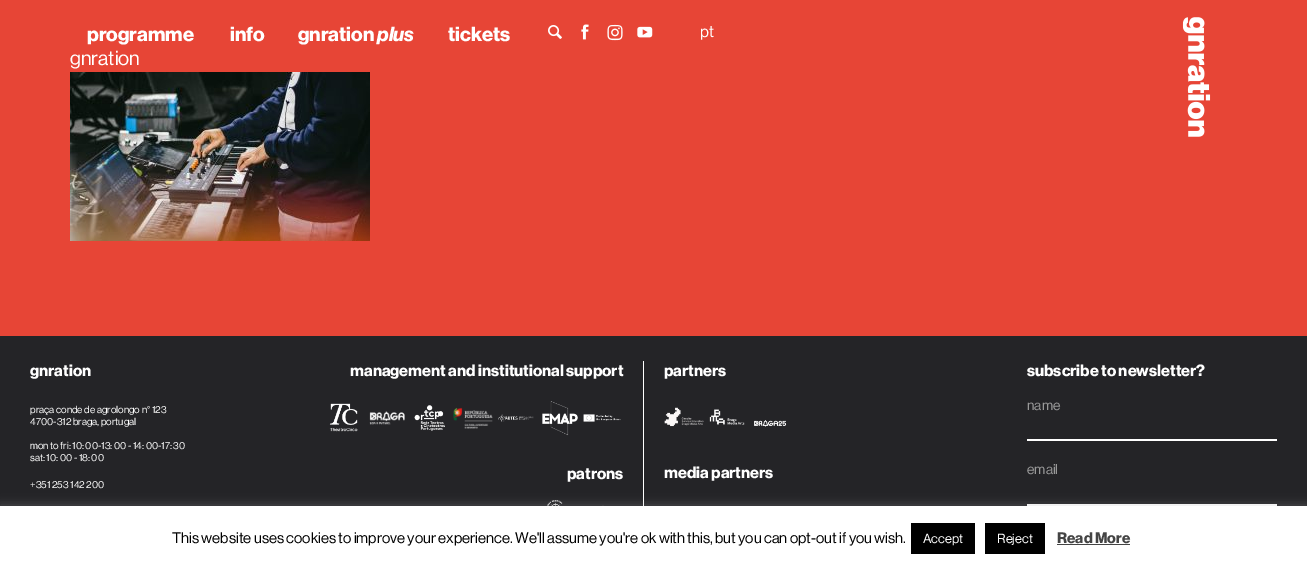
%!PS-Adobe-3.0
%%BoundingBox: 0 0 1307 571
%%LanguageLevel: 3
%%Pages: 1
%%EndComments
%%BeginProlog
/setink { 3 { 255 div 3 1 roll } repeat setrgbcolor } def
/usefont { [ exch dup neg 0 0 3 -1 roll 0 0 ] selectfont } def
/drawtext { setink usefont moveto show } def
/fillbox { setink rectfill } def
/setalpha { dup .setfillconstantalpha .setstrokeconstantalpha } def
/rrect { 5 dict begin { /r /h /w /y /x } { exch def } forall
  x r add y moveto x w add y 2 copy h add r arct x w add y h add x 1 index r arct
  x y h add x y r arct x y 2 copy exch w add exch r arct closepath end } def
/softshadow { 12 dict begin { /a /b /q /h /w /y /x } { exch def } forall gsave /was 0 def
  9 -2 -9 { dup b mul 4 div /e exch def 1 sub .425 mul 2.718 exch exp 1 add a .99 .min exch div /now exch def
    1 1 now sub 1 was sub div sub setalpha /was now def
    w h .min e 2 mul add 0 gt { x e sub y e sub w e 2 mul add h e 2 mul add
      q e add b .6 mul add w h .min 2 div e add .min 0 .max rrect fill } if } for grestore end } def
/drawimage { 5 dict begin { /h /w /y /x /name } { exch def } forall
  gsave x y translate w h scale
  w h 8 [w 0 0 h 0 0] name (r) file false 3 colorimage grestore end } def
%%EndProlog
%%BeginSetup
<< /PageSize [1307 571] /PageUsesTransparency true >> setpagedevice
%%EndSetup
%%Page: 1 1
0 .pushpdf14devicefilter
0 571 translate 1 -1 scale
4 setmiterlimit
0 0 1307 571 231 69 54 fillbox
(programme) 87 41 /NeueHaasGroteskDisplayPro-Bold 20 255 255 255 drawtext
(info) 230 41 /NeueHaasGroteskDisplayPro-Bold 20 255 255 255 drawtext
(gnration) 298 41 /NeueHaasGroteskDisplayPro-Bold 20 255 255 255 drawtext
(plus) 377 41 /NeueHaasGroteskDisplayPro-BoldItalic 20 255 255 255 drawtext
(tickets) 448 41 /NeueHaasGroteskDisplayPro-Bold 20 255 255 255 drawtext
(assets/img1.rgb) 548 25 14 14 drawimage
(assets/img2.rgb) 581 24 8 16 drawimage
(assets/img3.rgb) 607 24 16 17 drawimage
(assets/img4.rgb) 637 26 16 12 drawimage
(pt) 700 37 /NeueHaasGroteskDisplayPro-Regular 16 255 255 255 drawtext
(assets/img5.rgb) 1182 17 29 120 drawimage
(gnration) 70 65 /NeueHaasGroteskDisplayPro-Regular 20 255 255 255 drawtext
(assets/img6.rgb) 70 72 300 169 drawimage
0 336 1307 170 36 36 39 fillbox
(gnration) 30 376 /NeueHaasGroteskDisplayPro-Bold 16 255 255 255 drawtext
(praça conde de agrolongo n° 123) 30 413 /NeueHaasGroteskDisplayPro-Regular 10 255 255 255 drawtext
(4700-312 braga, portugal) 30 425 /NeueHaasGroteskDisplayPro-Regular 10 255 255 255 drawtext
(mon to fri: 10: 00-13: 00 - 14: 00-17: 30) 30 449 /NeueHaasGroteskDisplayPro-Regular 10 255 255 255 drawtext
(sat: 10: 00 - 18: 00) 30 461 /NeueHaasGroteskDisplayPro-Regular 10 255 255 255 drawtext
(+351 253 142 200) 30 488 /NeueHaasGroteskDisplayPro-Regular 10 255 255 255 drawtext
643 361 1 145 255 255 255 fillbox
(management and institutional support) 350 376 /NeueHaasGroteskDisplayPro-Bold 16 255 255 255 drawtext
(assets/img7.rgb) 329 403 29 29 drawimage
(assets/img8.rgb) 369 411 36 14 drawimage
(assets/img9.rgb) 414 405 31 26 drawimage
(assets/img10.rgb) 453 407 40 22 drawimage
(assets/img11.rgb) 498 414 36 8 drawimage
(assets/img12.rgb) 542 401 36 35 drawimage
(assets/img13.rgb) 583 414 38 8 drawimage
(patrons) 567 479 /NeueHaasGroteskDisplayPro-Bold 16 255 255 255 drawtext
(assets/img14.rgb) 547 500 16 6 drawimage
(assets/img15.rgb) 602 505 2 1 drawimage
(partners) 664 376 /NeueHaasGroteskDisplayPro-Bold 16 255 255 255 drawtext
(assets/img16.rgb) 664 407 40 20 drawimage
(assets/img17.rgb) 709 409 36 16 drawimage
(assets/img18.rgb) 754 420 33 7 drawimage
(media partners) 664 478 /NeueHaasGroteskDisplayPro-Bold 16 255 255 255 drawtext
(subscribe to newsletter?) 1027 376 /NeueHaasGroteskDisplayPro-Bold 16 255 255 255 drawtext
(name) 1027 410 /NeueHaasGroteskDisplayPro-Regular 14 153 153 153 drawtext
1027 439 250 2 255 255 255 fillbox
(email) 1027 474 /NeueHaasGroteskDisplayPro-Regular 14 153 153 153 drawtext
1027 504 250 2 255 255 255 fillbox
172 171 171 setink
0 505 1307 65 0 5 0.3 softshadow
0 506 1307 65 255 255 255 fillbox
(This website uses cookies to improve your experience. We'll assume you're ok with this, but you can opt-out if you wish.) 172 543 /NeueHaasGroteskDisplayPro-Regular 15 0 0 0 drawtext
911 523 64 31 0 0 0 fillbox
(Accept) 923 543 /NeueHaasGroteskDisplayPro-Regular 13 255 255 255 drawtext
985 523 60 31 0 0 0 fillbox
(Reject) 997 543 /NeueHaasGroteskDisplayPro-Regular 13 255 255 255 drawtext
(Read More) 1057 543 /NeueHaasGroteskDisplayPro-Bold 15 68 68 68 drawtext
1057 544 73 1 68 68 68 fillbox
.poppdf14devicefilter showpage
%%EOF
